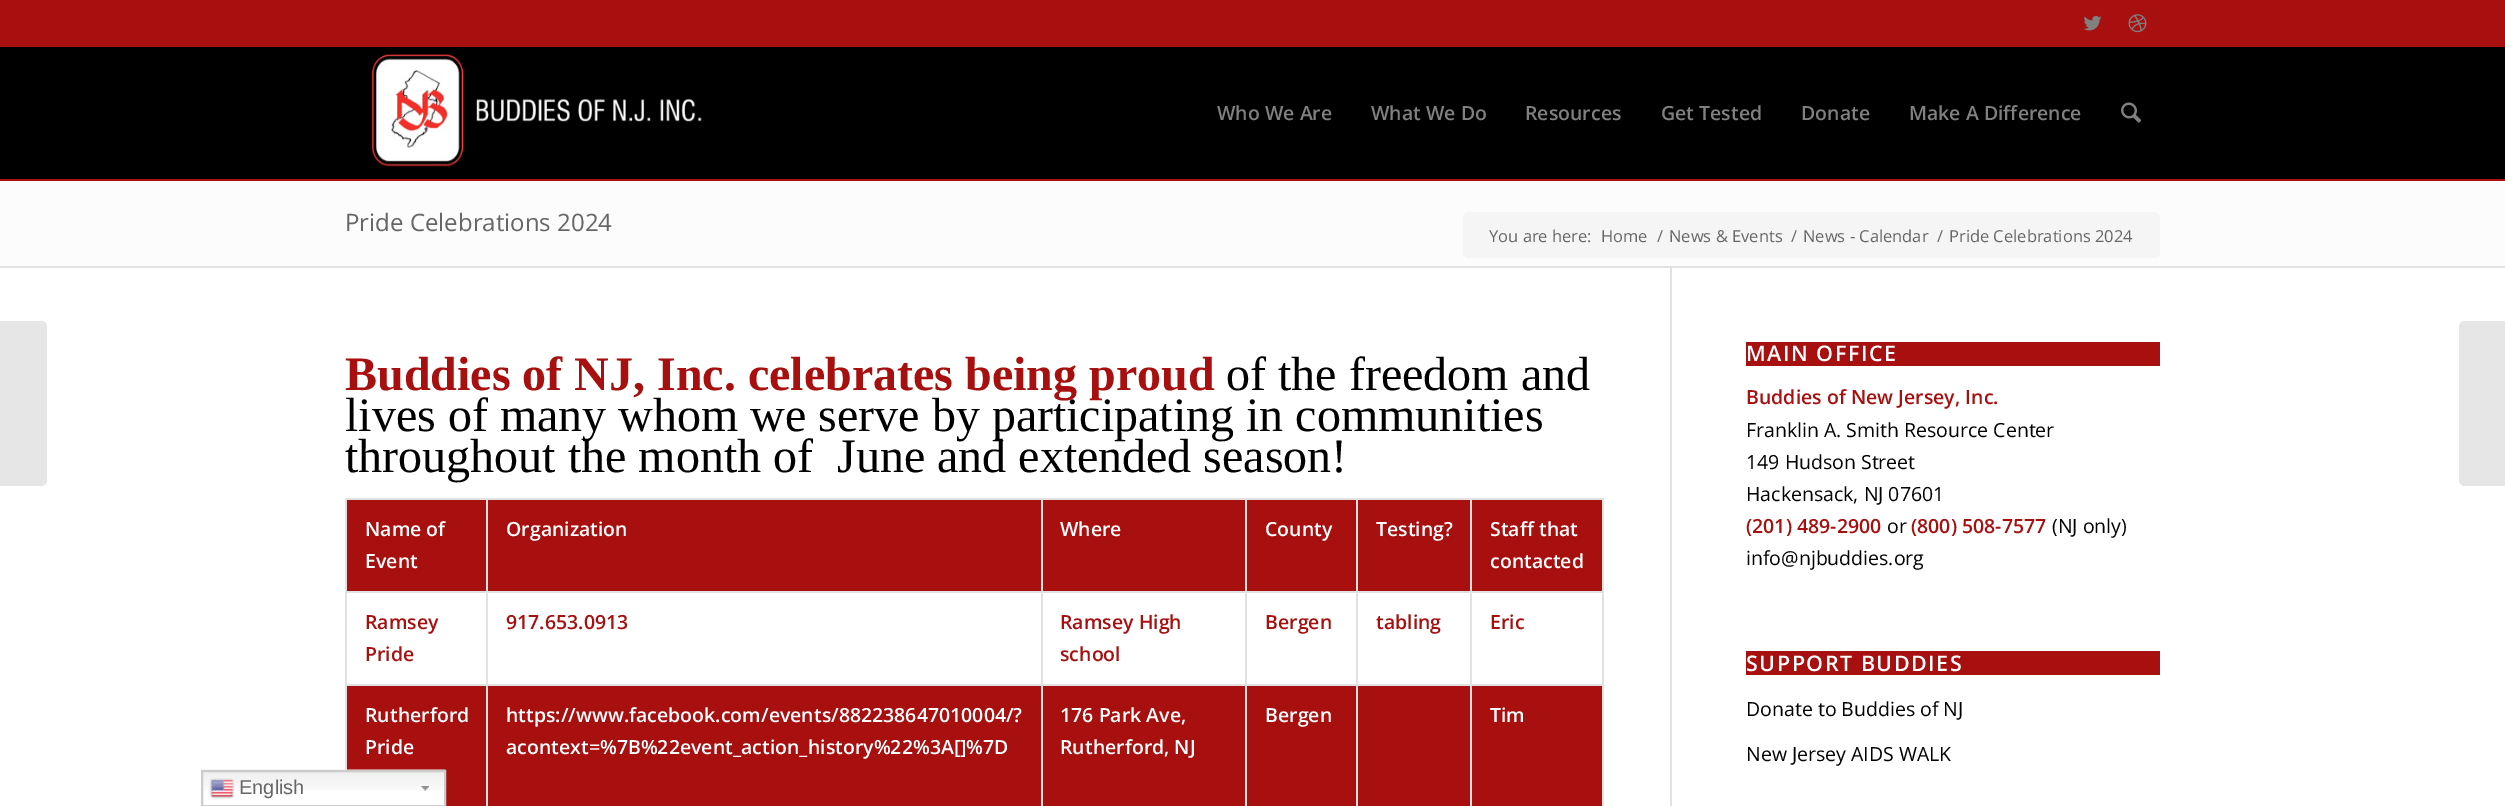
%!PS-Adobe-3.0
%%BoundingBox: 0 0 2505 806
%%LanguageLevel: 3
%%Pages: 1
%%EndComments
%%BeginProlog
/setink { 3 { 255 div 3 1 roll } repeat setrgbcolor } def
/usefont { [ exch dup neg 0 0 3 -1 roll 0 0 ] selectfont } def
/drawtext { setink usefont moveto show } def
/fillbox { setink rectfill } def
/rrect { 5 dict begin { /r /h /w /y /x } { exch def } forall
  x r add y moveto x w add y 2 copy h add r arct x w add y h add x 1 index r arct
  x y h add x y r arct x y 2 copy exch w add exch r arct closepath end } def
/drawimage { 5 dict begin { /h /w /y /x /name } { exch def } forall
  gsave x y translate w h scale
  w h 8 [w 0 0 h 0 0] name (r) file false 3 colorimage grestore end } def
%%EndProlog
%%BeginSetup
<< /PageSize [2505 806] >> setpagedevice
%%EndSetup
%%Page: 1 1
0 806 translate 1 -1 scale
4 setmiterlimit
0 0 2505 806 0 0 0 fillbox
0 0 2505 47 168 16 16 fillbox
(assets/img1.rgb) 2083 15 19 16 drawimage
(assets/img2.rgb) 2128 14 19 19 drawimage
0 179 2505 2 168 16 16 fillbox
(assets/img3.rgb) 345 47 434 123 drawimage
(Who We Are) 1217 120 /OpenSans-SemiBold 19.5 128 128 128 drawtext
(What We Do) 1371 120 /OpenSans-SemiBold 19.5 128 128 128 drawtext
(Resources) 1525 120 /OpenSans-SemiBold 19.5 128 128 128 drawtext
(Get Tested) 1661 120 /OpenSans-SemiBold 19.5 128 128 128 drawtext
(Donate) 1801 120 /OpenSans-SemiBold 19.5 128 128 128 drawtext
(Make A Difference) 1909 120 /OpenSans-SemiBold 19.5 128 128 128 drawtext
(assets/img4.rgb) 2121 102 21 21 drawimage
0 268 2505 538 255 255 255 fillbox
230 230 230 setink
0 321 moveto 41 321 lineto 44.5 321 47 323.5 47 327 curveto 47 480 lineto 47 483.5 44.5 486 41 486 curveto 0 486 lineto closepath fill
0 181 2505 85 252 252 252 fillbox
(Pride Celebrations 2024) 345 231 /OpenSans-Regular 24 102 102 102 drawtext
245 245 245 setink
1463 212 697 46 6 rrect fill
(You are here:) 1489 242 /OpenSans-Regular 16.5 102 102 102 drawtext
(Home) 1601 242 /OpenSans-Regular 16.5 102 102 102 drawtext
(/) 1657 242 /OpenSans-Regular 16.5 102 102 102 drawtext
(News & Events) 1669 242 /OpenSans-Regular 16.5 102 102 102 drawtext
(/) 1791 242 /OpenSans-Regular 16.5 102 102 102 drawtext
(News - Calendar) 1803 242 /OpenSans-Regular 16.5 102 102 102 drawtext
(/) 1937 242 /OpenSans-Regular 16.5 102 102 102 drawtext
(Pride Celebrations 2024) 1949 242 /OpenSans-Regular 16.5 102 102 102 drawtext
0 266 2505 2 225 225 225 fillbox
1670 267 2 539 225 225 225 fillbox
(Buddies of NJ, Inc. celebrates being proud) 345 390 /LiberationSerif-Bold 48 168 16 16 drawtext
(of the freedom and) 1226 390 /LiberationSerif-Regular 48 0 0 0 drawtext
(lives of many whom we serve by participating in communities) 345 431 /LiberationSerif-Regular 48 0 0 0 drawtext
(throughout the month of  June and extended season!) 345 472 /LiberationSerif-Regular 48 0 0 0 drawtext
347 500 1255 306 168 16 16 fillbox
1470 498 134 2 225 225 225 fillbox
1470 591 134 2 225 225 225 fillbox
347 593 1255 91 255 255 255 fillbox
1470 684 134 2 225 225 225 fillbox
1470 684 2 122 225 225 225 fillbox
1356 684 116 2 225 225 225 fillbox
1470 591 2 95 225 225 225 fillbox
1356 591 116 2 225 225 225 fillbox
1470 498 2 95 225 225 225 fillbox
1356 498 116 2 225 225 225 fillbox
1356 684 2 122 225 225 225 fillbox
1245 684 113 2 225 225 225 fillbox
1356 591 2 95 225 225 225 fillbox
1245 591 113 2 225 225 225 fillbox
1356 498 2 95 225 225 225 fillbox
1245 498 113 2 225 225 225 fillbox
1245 684 2 122 225 225 225 fillbox
1041 684 206 2 225 225 225 fillbox
1245 591 2 95 225 225 225 fillbox
1041 591 206 2 225 225 225 fillbox
1245 498 2 95 225 225 225 fillbox
1041 498 206 2 225 225 225 fillbox
1041 684 2 122 225 225 225 fillbox
486 684 557 2 225 225 225 fillbox
1041 591 2 95 225 225 225 fillbox
486 591 557 2 225 225 225 fillbox
1041 498 2 95 225 225 225 fillbox
486 498 557 2 225 225 225 fillbox
486 684 2 122 225 225 225 fillbox
345 684 143 2 225 225 225 fillbox
486 591 2 95 225 225 225 fillbox
345 591 143 2 225 225 225 fillbox
486 498 2 95 225 225 225 fillbox
345 498 143 2 225 225 225 fillbox
345 684 2 86 225 225 225 fillbox
345 591 2 95 225 225 225 fillbox
345 498 2 95 225 225 225 fillbox
(Name of) 365 536 /OpenSans-SemiBold 19.5 255 255 255 drawtext
(Event) 365 568 /OpenSans-SemiBold 19.5 255 255 255 drawtext
(Organization) 506 536 /OpenSans-SemiBold 19.5 255 255 255 drawtext
(Where) 1060 536 /OpenSans-SemiBold 19.5 255 255 255 drawtext
(County) 1265 536 /OpenSans-SemiBold 19.5 255 255 255 drawtext
(Testing?) 1376 536 /OpenSans-SemiBold 19.5 255 255 255 drawtext
1602 684 2 122 225 225 225 fillbox
1602 591 2 95 225 225 225 fillbox
1602 498 2 95 225 225 225 fillbox
(Staff that) 1490 536 /OpenSans-SemiBold 19.5 255 255 255 drawtext
(contacted) 1490 568 /OpenSans-SemiBold 19.5 255 255 255 drawtext
(Ramsey) 365 629 /OpenSans-SemiBold 19.5 168 16 16 drawtext
(Pride) 365 661 /OpenSans-SemiBold 19.5 168 16 16 drawtext
(917.653.0913) 506 629 /OpenSans-SemiBold 19.5 168 16 16 drawtext
(Ramsey High) 1060 629 /OpenSans-SemiBold 19.5 168 16 16 drawtext
(school) 1060 661 /OpenSans-SemiBold 19.5 168 16 16 drawtext
(Bergen) 1265 629 /OpenSans-SemiBold 19.5 168 16 16 drawtext
(tabling) 1376 629 /OpenSans-SemiBold 19.5 168 16 16 drawtext
(Eric) 1490 629 /OpenSans-SemiBold 19.5 168 16 16 drawtext
(Rutherford) 365 722 /OpenSans-SemiBold 19.5 255 255 255 drawtext
(Pride) 365 754 /OpenSans-SemiBold 19.5 255 255 255 drawtext
(https://www.facebook.com/events/882238647010004/?) 506 722 /OpenSans-SemiBold 19.5 255 255 255 drawtext
(acontext=%7B%22event_action_history%22%3A[]%7D) 506 754 /OpenSans-SemiBold 19.5 255 255 255 drawtext
(176 Park Ave,) 1060 722 /OpenSans-SemiBold 19.5 255 255 255 drawtext
(Rutherford, NJ) 1060 754 /OpenSans-SemiBold 19.5 255 255 255 drawtext
(Bergen) 1265 722 /OpenSans-SemiBold 19.5 255 255 255 drawtext
(Tim) 1490 722 /OpenSans-SemiBold 19.5 255 255 255 drawtext
1746 342 414 24 168 16 16 fillbox
/OpenSans-SemiBold 21.5 usefont
255 255 255 setink
1746 361 moveto 1.5 0 (MAIN OFFICE) ashow
(Buddies of New Jersey, Inc.) 1746 404 /OpenSans-SemiBold 19.5 168 16 16 drawtext
(Franklin A. Smith Resource Center) 1746 437 /OpenSans-Regular 19.5 0 0 0 drawtext
(149 Hudson Street) 1746 469 /OpenSans-Regular 19.5 0 0 0 drawtext
(Hackensack, NJ 07601) 1746 501 /OpenSans-Regular 19.5 0 0 0 drawtext
(\(201\) 489-2900) 1746 533 /OpenSans-SemiBold 19.5 168 16 16 drawtext
(or) 1887 533 /OpenSans-Regular 19.5 0 0 0 drawtext
(\(800\) 508-7577) 1911 533 /OpenSans-SemiBold 19.5 168 16 16 drawtext
(\(NJ only\)) 2052 533 /OpenSans-Regular 19.5 0 0 0 drawtext
(info@njbuddies.org) 1746 565 /OpenSans-Regular 19.5 0 0 0 drawtext
1746 651 414 24 168 16 16 fillbox
/OpenSans-SemiBold 21.5 usefont
255 255 255 setink
1746 671 moveto 1.5 0 (SUPPORT BUDDIES) ashow
(Donate to Buddies of NJ) 1746 716 /OpenSans-Regular 19.5 0 0 0 drawtext
(New Jersey AIDS WALK) 1746 761 /OpenSans-Regular 19.5 0 0 0 drawtext
230 230 230 setink
2465 321 moveto 2505 321 lineto 2505 486 lineto 2465 486 lineto 2461.5 486 2459 483.5 2459 480 curveto 2459 327 lineto 2459 323.5 2461.5 321 2465 321 curveto closepath fill
347 791 97 14 255 255 255 fillbox
(assets/img5.rgb) 201 769 245 22 drawimage
(assets/img6.rgb) 421 786 8 5 drawimage
204 204 204 setink
2 setlinewidth
202 771 243 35 rectstroke
(assets/img7.rgb) 209 778 26 21 drawimage
(English) 239 794 /LiberationSans-Regular 20 102 102 102 drawtext
showpage
%%EOF
